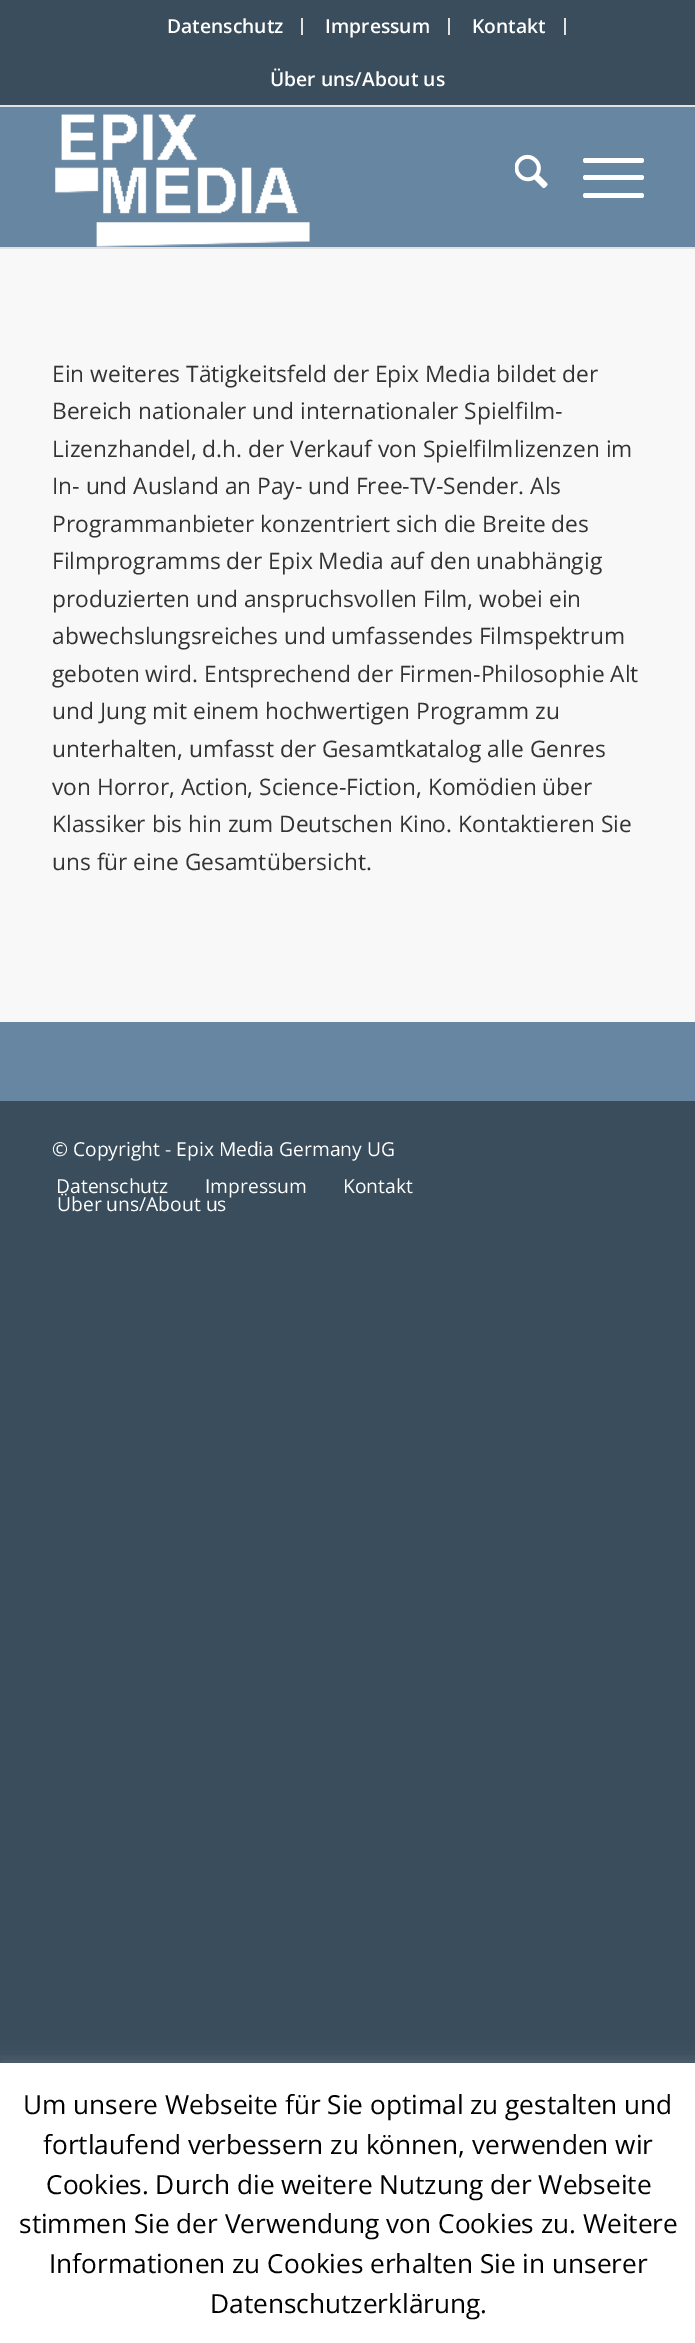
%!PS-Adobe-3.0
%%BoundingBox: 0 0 695 2343
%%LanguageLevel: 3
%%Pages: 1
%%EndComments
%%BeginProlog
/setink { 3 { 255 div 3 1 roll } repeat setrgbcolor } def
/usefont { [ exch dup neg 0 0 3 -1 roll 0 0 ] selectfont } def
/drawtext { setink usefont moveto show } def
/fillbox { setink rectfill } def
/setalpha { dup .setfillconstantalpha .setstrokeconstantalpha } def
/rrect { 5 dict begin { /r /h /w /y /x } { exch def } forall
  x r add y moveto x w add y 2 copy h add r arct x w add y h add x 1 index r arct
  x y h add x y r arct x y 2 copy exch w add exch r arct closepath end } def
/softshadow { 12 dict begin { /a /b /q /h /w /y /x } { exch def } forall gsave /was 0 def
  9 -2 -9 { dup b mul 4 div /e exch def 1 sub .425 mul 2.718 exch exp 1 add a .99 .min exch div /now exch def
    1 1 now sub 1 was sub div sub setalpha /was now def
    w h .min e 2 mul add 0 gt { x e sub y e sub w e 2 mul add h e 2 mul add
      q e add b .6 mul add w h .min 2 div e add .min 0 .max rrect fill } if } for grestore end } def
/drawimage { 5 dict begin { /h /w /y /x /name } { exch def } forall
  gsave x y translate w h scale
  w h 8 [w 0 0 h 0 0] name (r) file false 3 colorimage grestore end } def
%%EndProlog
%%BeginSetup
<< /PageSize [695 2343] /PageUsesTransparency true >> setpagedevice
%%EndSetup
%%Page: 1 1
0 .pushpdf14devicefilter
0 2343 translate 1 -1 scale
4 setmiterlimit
0 0 695 2343 58 77 92 fillbox
0 105 695 2 225 225 225 fillbox
301 18 2 17 225 225 225 fillbox
(Datenschutz) 167 33 /OpenSans-SemiBold 19.25 255 255 255 drawtext
448 18 2 17 225 225 225 fillbox
(Impressum) 325 33 /OpenSans-SemiBold 19.25 255 255 255 drawtext
564 18 2 17 225 225 225 fillbox
(Kontakt) 472 33 /OpenSans-SemiBold 19.25 255 255 255 drawtext
(Über uns/About us) 270 86 /OpenSans-SemiBold 19.25 255 255 255 drawtext
0 107 695 140 103 134 161 fillbox
0 247 695 2 225 225 225 fillbox
(assets/img1.rgb) 55 114 255 133 drawimage
(assets/img2.rgb) 515 154 33 35 drawimage
255 255 255 setink
583 175 61 5 2.5 rrect fill
583 158 61 5 2.5 rrect fill
583 193 61 5 2.5 rrect fill
0 1022 695 79 103 134 161 fillbox
0 249 695 773 248 248 248 fillbox
(Ein weiteres Tätigkeitsfeld der Epix Media bildet der) 52 382 /OpenSans-Regular 22.75 51 51 51 drawtext
(Bereich nationaler und internationaler Spielfilm-) 52 419 /OpenSans-Regular 22.75 51 51 51 drawtext
(Lizenzhandel, d.h. der Verkauf von Spielfilmlizenzen im) 52 457 /OpenSans-Regular 22.75 51 51 51 drawtext
(In- und Ausland an Pay- und Free-TV-Sender. Als) 52 494 /OpenSans-Regular 22.75 51 51 51 drawtext
(Programmanbieter konzentriert sich die Breite des) 52 532 /OpenSans-Regular 22.75 51 51 51 drawtext
(Filmprogramms der Epix Media auf den unabhängig) 52 569 /OpenSans-Regular 22.75 51 51 51 drawtext
(produzierten und anspruchsvollen Film, wobei ein) 52 607 /OpenSans-Regular 22.75 51 51 51 drawtext
(abwechslungsreiches und umfassendes Filmspektrum) 52 644 /OpenSans-Regular 22.75 51 51 51 drawtext
(geboten wird. Entsprechend der Firmen-Philosophie Alt) 52 682 /OpenSans-Regular 22.75 51 51 51 drawtext
(und Jung mit einem hochwertigen Programm zu) 52 719 /OpenSans-Regular 22.75 51 51 51 drawtext
(unterhalten, umfasst der Gesamtkatalog alle Genres) 52 757 /OpenSans-Regular 22.75 51 51 51 drawtext
(von Horror, Action, Science-Fiction, Komödien über) 52 795 /OpenSans-Regular 22.75 51 51 51 drawtext
(Klassiker bis hin zum Deutschen Kino. Kontaktieren Sie) 52 832 /OpenSans-Regular 22.75 51 51 51 drawtext
(uns für eine Gesamtübersicht.) 52 870 /OpenSans-Regular 22.75 51 51 51 drawtext
(© Copyright - Epix Media Germany UG) 52 1156 /OpenSans-Regular 19.25 255 255 255 drawtext
(Datenschutz) 56 1193 /OpenSans-Regular 19.25 255 255 255 drawtext
(Impressum) 205 1193 /OpenSans-Regular 19.25 255 255 255 drawtext
(Kontakt) 343 1193 /OpenSans-Regular 19.25 255 255 255 drawtext
(Über uns/About us) 57 1211 /OpenSans-Regular 19.25 255 255 255 drawtext
172 171 171 setink
0 2062 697 280 0 9 0.3 softshadow
0 2063 695 280 255 255 255 fillbox
(Um unsere Webseite für Sie optimal zu gestalten und) 23 2114 /OpenSans-Regular 26.25 0 0 0 drawtext
(fortlaufend verbessern zu können, verwenden wir) 43 2154 /OpenSans-Regular 26.25 0 0 0 drawtext
(Cookies. Durch die weitere Nutzung der Webseite) 46 2194 /OpenSans-Regular 26.25 0 0 0 drawtext
(stimmen Sie der Verwendung von Cookies zu. Weitere) 19 2233 /OpenSans-Regular 26.25 0 0 0 drawtext
(Informationen zu Cookies erhalten Sie in unserer) 49 2273 /OpenSans-Regular 26.25 0 0 0 drawtext
(Datenschutzerklärung.) 210 2313 /OpenSans-Regular 26.25 0 0 0 drawtext
.poppdf14devicefilter showpage
%%EOF
